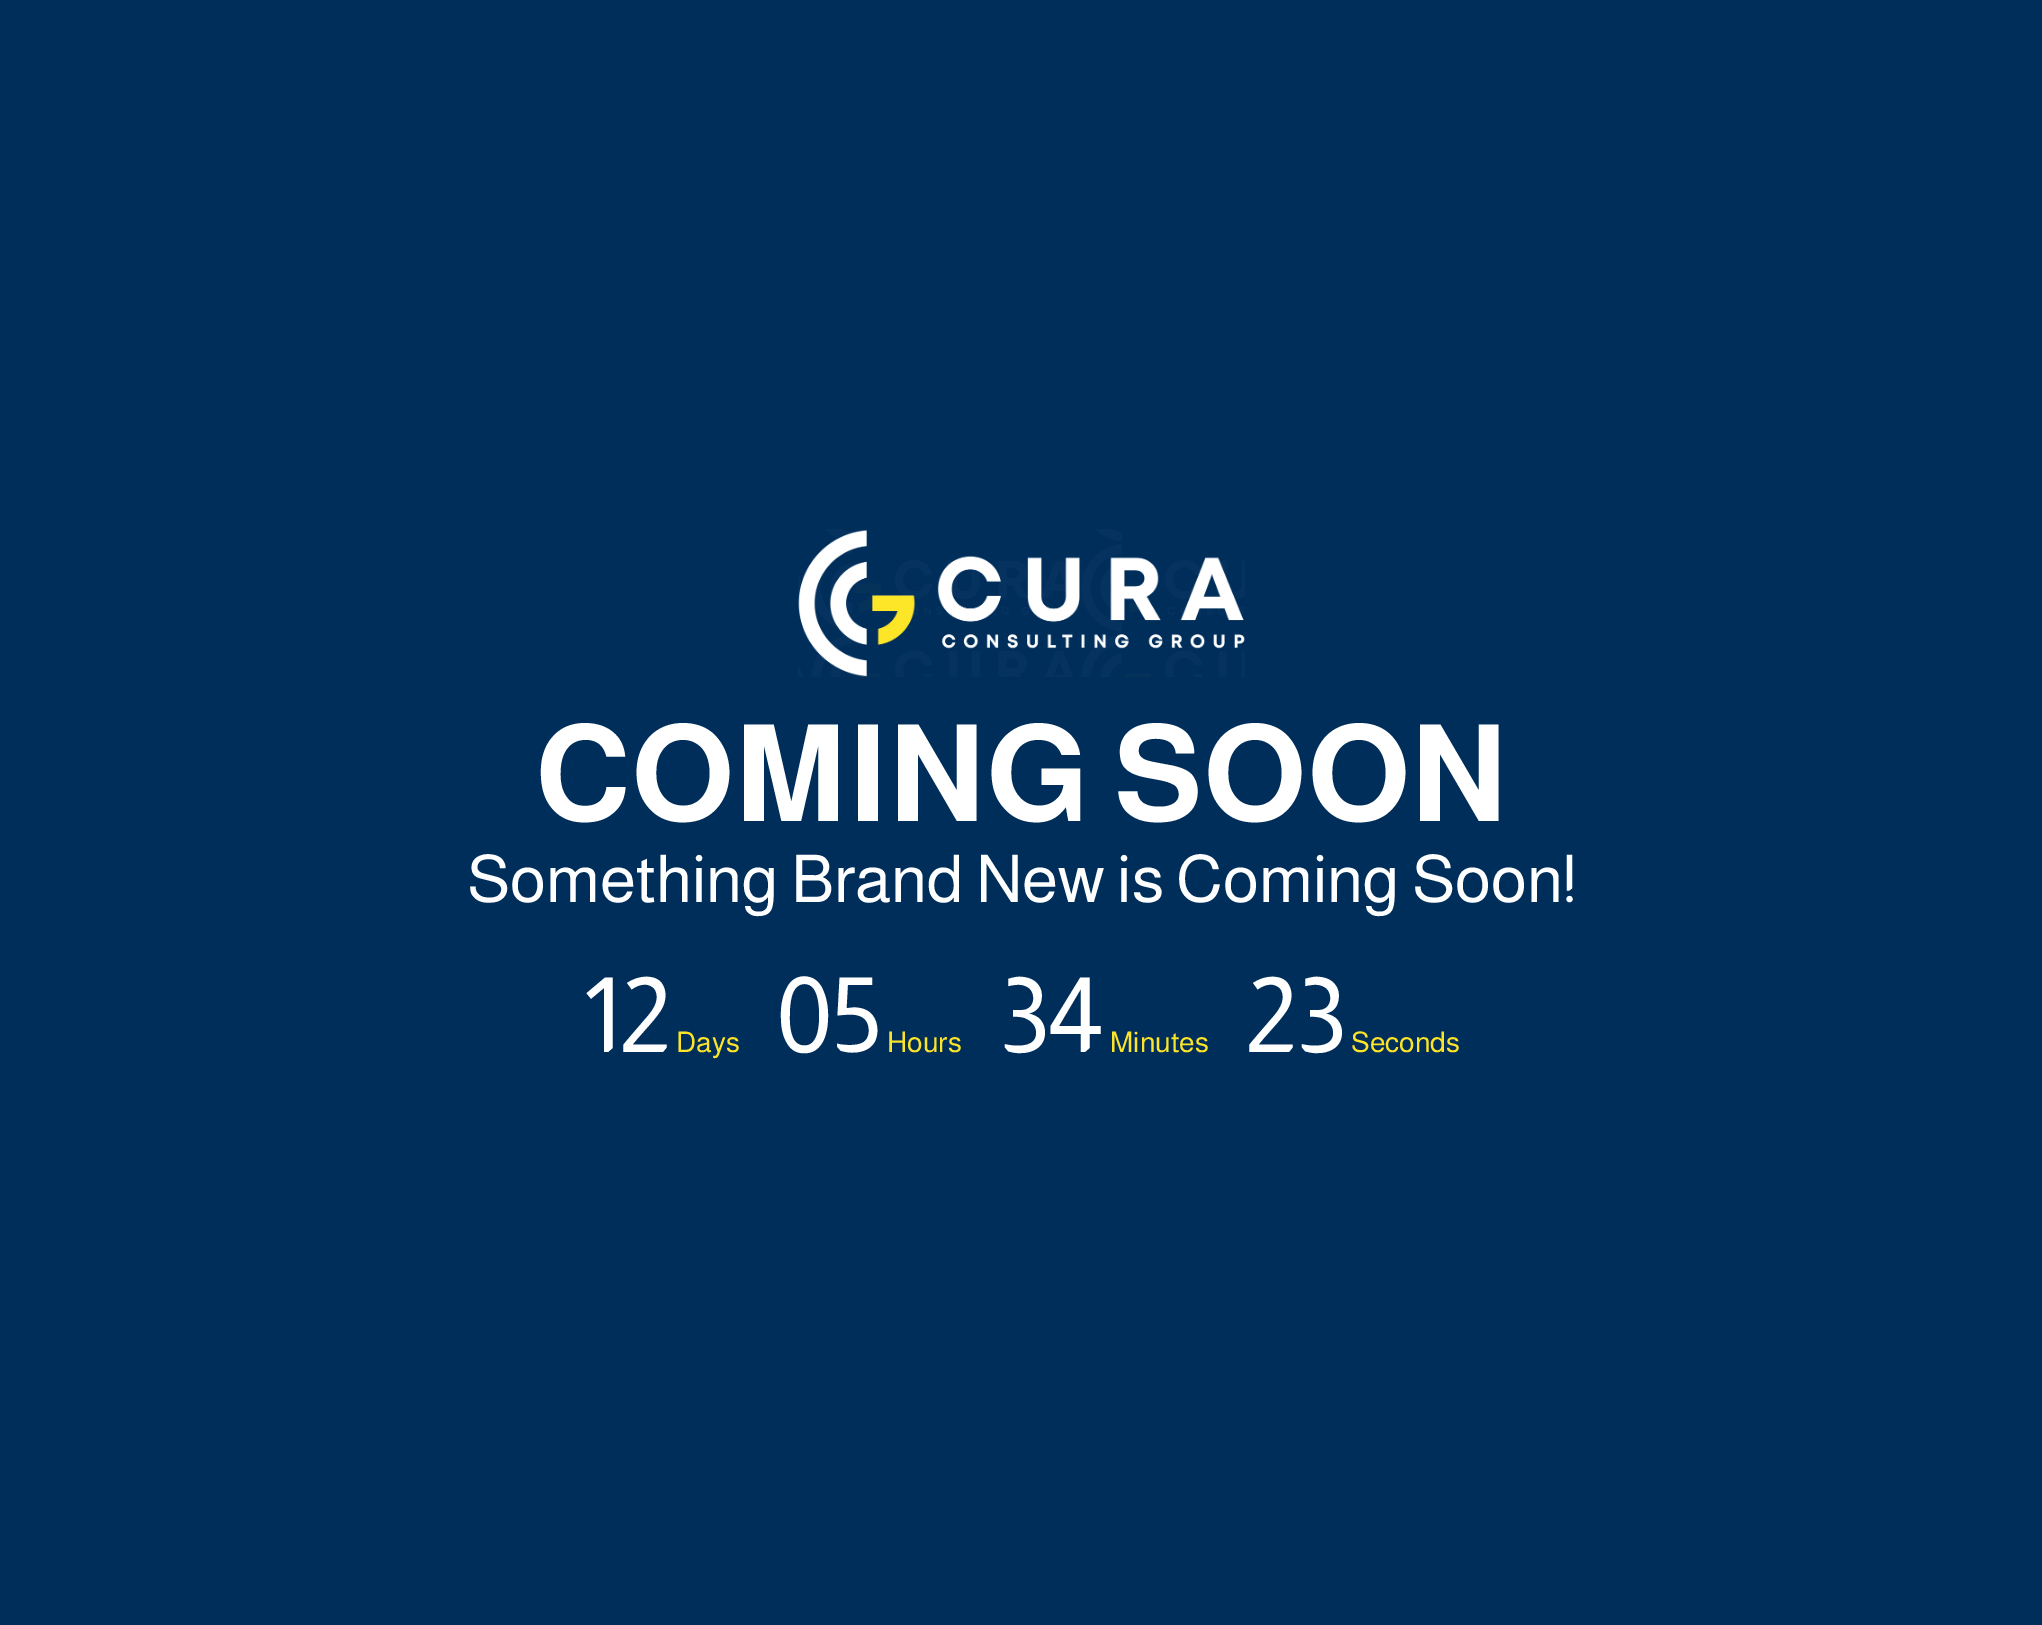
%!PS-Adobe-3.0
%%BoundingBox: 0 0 2042 1625
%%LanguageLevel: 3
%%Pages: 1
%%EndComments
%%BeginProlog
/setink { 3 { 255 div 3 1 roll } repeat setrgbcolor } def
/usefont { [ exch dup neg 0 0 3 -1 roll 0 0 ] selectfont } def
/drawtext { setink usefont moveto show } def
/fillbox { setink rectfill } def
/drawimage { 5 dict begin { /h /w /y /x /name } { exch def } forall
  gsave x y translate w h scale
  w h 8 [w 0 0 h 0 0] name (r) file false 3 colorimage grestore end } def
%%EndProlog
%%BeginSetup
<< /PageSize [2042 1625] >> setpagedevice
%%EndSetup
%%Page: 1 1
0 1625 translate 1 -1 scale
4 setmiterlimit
0 0 2042 1625 0 46 91 fillbox
(assets/img1.rgb) 798 529 447 148 drawimage
(COMING SOON) 535 821 /Almarai-Bold 135 255 255 255 drawtext
(Something Brand New is Coming Soon!) 467 902 /Almarai-Regular 66 255 255 255 drawtext
(12) 583 1052 /Almarai-Regular 104 255 255 255 drawtext
(Days) 676 1052 /Almarai-Regular 28.5 253 228 40 drawtext
(05) 777 1052 /Almarai-Regular 104 255 255 255 drawtext
(Hours) 887 1052 /Almarai-Regular 28.5 253 228 40 drawtext
(34) 999 1052 /Almarai-Regular 104 255 255 255 drawtext
(Minutes) 1110 1052 /Almarai-Regular 28.5 253 228 40 drawtext
(23) 1246 1052 /Almarai-Regular 104 255 255 255 drawtext
(Seconds) 1351 1052 /Almarai-Regular 28.5 253 228 40 drawtext
showpage
%%EOF
